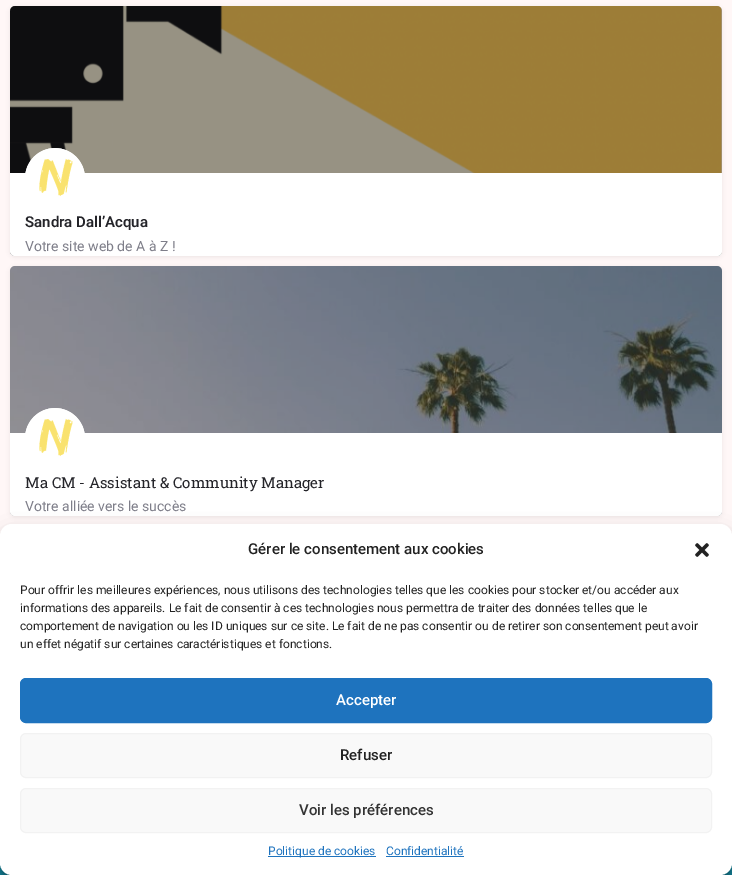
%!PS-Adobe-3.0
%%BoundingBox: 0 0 732 875
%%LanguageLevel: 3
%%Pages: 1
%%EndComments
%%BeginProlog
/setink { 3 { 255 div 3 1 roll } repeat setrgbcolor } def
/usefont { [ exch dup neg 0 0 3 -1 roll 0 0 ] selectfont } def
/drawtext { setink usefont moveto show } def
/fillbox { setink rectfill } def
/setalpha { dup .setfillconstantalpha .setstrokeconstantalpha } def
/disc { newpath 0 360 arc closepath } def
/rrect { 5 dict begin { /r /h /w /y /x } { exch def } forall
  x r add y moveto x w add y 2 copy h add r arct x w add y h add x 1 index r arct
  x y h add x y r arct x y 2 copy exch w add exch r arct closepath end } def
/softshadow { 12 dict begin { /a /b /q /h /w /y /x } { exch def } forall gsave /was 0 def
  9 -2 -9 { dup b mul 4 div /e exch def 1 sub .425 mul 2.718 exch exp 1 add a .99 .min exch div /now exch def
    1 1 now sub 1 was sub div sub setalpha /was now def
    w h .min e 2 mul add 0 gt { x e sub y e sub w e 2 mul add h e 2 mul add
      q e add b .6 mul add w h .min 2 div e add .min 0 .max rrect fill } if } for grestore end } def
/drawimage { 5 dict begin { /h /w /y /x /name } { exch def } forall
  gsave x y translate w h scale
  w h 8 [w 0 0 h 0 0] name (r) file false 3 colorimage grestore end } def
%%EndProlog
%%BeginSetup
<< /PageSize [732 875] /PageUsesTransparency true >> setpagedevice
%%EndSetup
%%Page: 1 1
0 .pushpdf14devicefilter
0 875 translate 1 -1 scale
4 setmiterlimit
0 0 732 875 19 135 158 fillbox
0 0 732 536 255 247 247 fillbox
0 0 0 setink
10 7 712 250 5 2 0.07 softshadow
(assets/img1.rgb) 10 6 712 250 drawimage
0.4 setalpha
36 36 41 setink
10 6 712 250 5 rrect fill
1 setalpha
255 255 255 setink
10 173 moveto 722 173 lineto 722 251 lineto 722 254 720 256 717 256 curveto 15 256 lineto 12 256 10 254 10 251 curveto closepath fill
55 178 30 disc fill
(assets/img2.rgb) 25 148 60 49 drawimage
(Sandra Dall’Acqua) 25 227 /Roboto-SemiBold 15 36 36 41 drawtext
(Votre site web de A à Z !) 25 251 /Roboto-Regular 14 126 126 137 drawtext
0 0 0 setink
10 267 712 250 5 2 0.07 softshadow
(assets/img3.rgb) 10 266 712 250 drawimage
0.4 setalpha
36 36 41 setink
10 266 712 250 5 rrect fill
1 setalpha
255 255 255 setink
10 433 moveto 722 433 lineto 722 511 lineto 722 514 720 516 717 516 curveto 15 516 lineto 12 516 10 514 10 511 curveto closepath fill
55 438 30 disc fill
(assets/img4.rgb) 25 408 60 49 drawimage
(Ma CM - Assistant & Community Manager) 25 488 /RobotoSlab-Regular 15 36 36 41 drawtext
(Votre alliée vers le succès) 25 511 /Roboto-Regular 14 126 126 137 drawtext
0 0 0 setink
0 530 732 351 12 3 0.23 softshadow
0 534 732 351 12 10 0.19 softshadow
128 128 128 setink
662 801 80 60 2 2.5 1 softshadow
255 255 255 setink
0 524 732 351 12 rrect fill
(Gérer le consentement aux cookies) 248 554 /Roboto-Medium 15 34 34 34 drawtext
(assets/img5.rgb) 695 543 14 14 drawimage
(Pour offrir les meilleures expériences, nous utilisons des technologies telles que les cookies pour stocker et/ou accéder aux) 20 594 /Roboto-Regular 12 34 34 34 drawtext
(informations des appareils. Le fait de consentir à ces technologies nous permettra de traiter des données telles que le) 20 612 /Roboto-Regular 12 34 34 34 drawtext
(comportement de navigation ou les ID uniques sur ce site. Le fait de ne pas consentir ou de retirer son consentement peut avoir) 20 630 /Roboto-Regular 12 34 34 34 drawtext
(un effet négatif sur certaines caractéristiques et fonctions.) 20 648 /Roboto-Regular 12 34 34 34 drawtext
30 115 190 setink
20.5 678.5 691 44 5.5 rrect gsave fill grestore
stroke
(Accepter) 336 705 /Roboto-Medium 15 255 255 255 drawtext
249 249 249 setink
20.5 733.5 691 44 5.5 rrect gsave fill grestore
242 242 242 setink
stroke
(Refuser) 340 760 /Roboto-Medium 15 34 34 34 drawtext
249 249 249 setink
20.5 788.5 691 44 5.5 rrect gsave fill grestore
242 242 242 setink
stroke
(Voir les préférences) 299 815 /Roboto-Medium 15 51 51 51 drawtext
268 856 108 1 30 115 190 fillbox
(Politique de cookies) 268 855 /Roboto-Regular 12 30 115 190 drawtext
(Confidentialité) 386 855 /Roboto-Regular 12 30 115 190 drawtext
386 856 78 1 30 115 190 fillbox
.poppdf14devicefilter showpage
%%EOF
